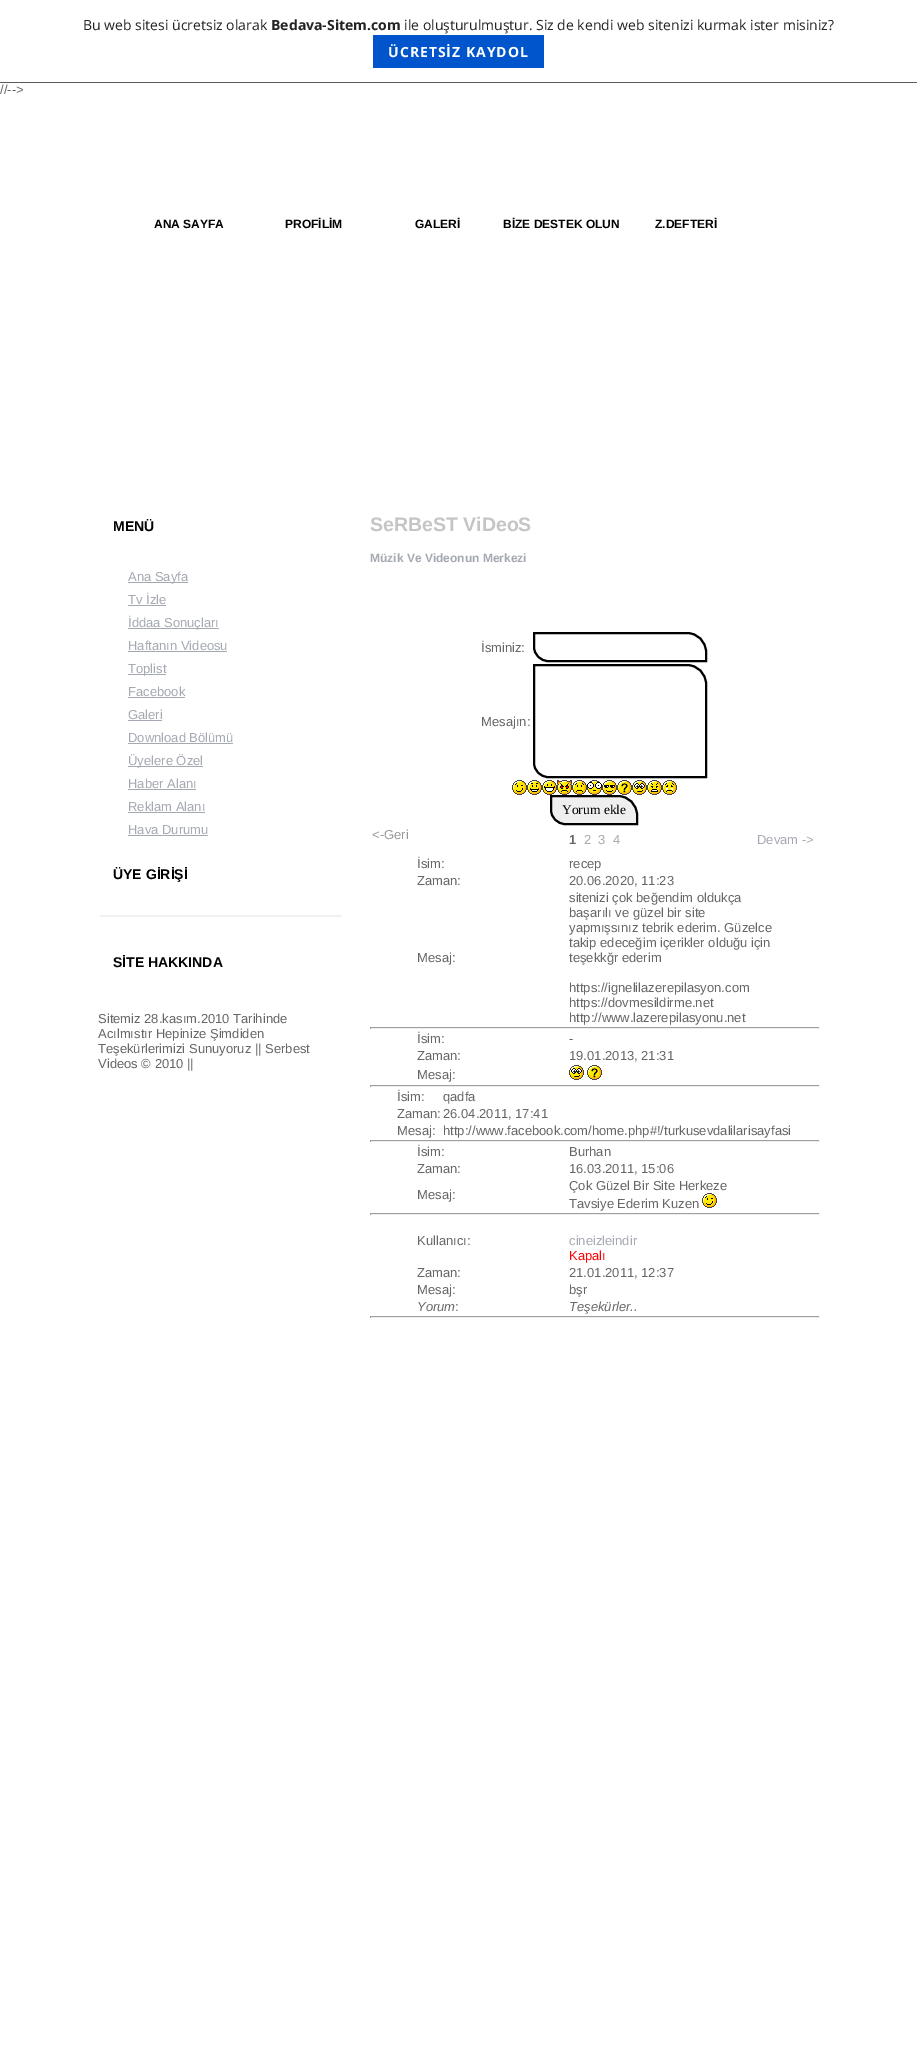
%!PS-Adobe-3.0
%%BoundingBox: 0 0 917 2071
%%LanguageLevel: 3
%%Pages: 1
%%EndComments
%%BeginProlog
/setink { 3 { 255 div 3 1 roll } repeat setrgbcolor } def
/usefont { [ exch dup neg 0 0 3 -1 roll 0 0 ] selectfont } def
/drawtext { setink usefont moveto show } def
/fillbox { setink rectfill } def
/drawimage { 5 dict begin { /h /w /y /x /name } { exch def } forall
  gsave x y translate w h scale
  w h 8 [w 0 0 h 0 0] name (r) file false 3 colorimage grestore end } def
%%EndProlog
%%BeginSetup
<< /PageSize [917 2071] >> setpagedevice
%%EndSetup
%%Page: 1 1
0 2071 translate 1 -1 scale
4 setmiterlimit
0 0 917 2071 255 255 255 fillbox
0 82 917 1 90 90 90 fillbox
(Bu web sitesi ücretsiz olarak) 83 30 /OpenSans-Regular 14 35 35 35 drawtext
(Bedava-Sitem.com) 271 30 /OpenSans-Bold 14 35 35 35 drawtext
(ile oluşturulmuştur. Siz de kendi web sitenizi kurmak ister misiniz?) 404 30 /OpenSans-Regular 14 35 35 35 drawtext
373 35 171 33 0 85 204 fillbox
/OpenSans-Bold 14 usefont
255 255 255 setink
388 57 moveto 1 0 (ÜCRETSİZ KAYDOL) ashow
(//-->) 0 94 /LiberationSans-Regular 13 102 102 102 drawtext
(ANA SAYFA) 154 228 /LiberationSans-Bold 12 0 0 0 drawtext
(PROFİLİM) 285 228 /LiberationSans-Bold 12 0 0 0 drawtext
(GALERİ) 415 228 /LiberationSans-Bold 12 0 0 0 drawtext
(BİZE DESTEK OLUN) 503 228 /LiberationSans-Bold 12 0 0 0 drawtext
(Z.DEFTERİ) 655 228 /LiberationSans-Bold 12 0 0 0 drawtext
(MENÜ) 113 531 /LiberationSans-Bold 14 0 0 0 drawtext
128 582 60 1 165 169 178 fillbox
(Ana Sayfa) 128 581 /LiberationSans-Regular 13 165 169 178 drawtext
(Tv İzle) 128 604 /LiberationSans-Regular 13 165 169 178 drawtext
128 605 38 1 165 169 178 fillbox
128 628 91 1 165 169 178 fillbox
(İddaa Sonuçları) 128 627 /LiberationSans-Regular 13 165 169 178 drawtext
(Haftanın Videosu) 128 650 /LiberationSans-Regular 13 165 169 178 drawtext
128 651 99 1 165 169 178 fillbox
128 674 38 1 165 169 178 fillbox
(Toplist) 128 673 /LiberationSans-Regular 13 165 169 178 drawtext
(Facebook) 128 696 /LiberationSans-Regular 13 165 169 178 drawtext
128 697 57 1 165 169 178 fillbox
(Galeri) 128 719 /LiberationSans-Regular 13 165 169 178 drawtext
128 720 34 1 165 169 178 fillbox
(Download Bölümü) 128 742 /LiberationSans-Regular 13 165 169 178 drawtext
128 743 105 1 165 169 178 fillbox
128 766 75 1 165 169 178 fillbox
(Üyelere Özel) 128 765 /LiberationSans-Regular 13 165 169 178 drawtext
(Haber Alanı) 128 788 /LiberationSans-Regular 13 165 169 178 drawtext
128 789 68 1 165 169 178 fillbox
(Reklam Alanı) 128 811 /LiberationSans-Regular 13 165 169 178 drawtext
128 812 77 1 165 169 178 fillbox
(Hava Durumu) 128 834 /LiberationSans-Regular 13 165 169 178 drawtext
128 835 80 1 165 169 178 fillbox
(ÜYE GİRİŞİ) 113 879 /LiberationSans-Bold 14 0 0 0 drawtext
100 915 242 2 241 241 241 fillbox
(SİTE HAKKINDA) 113 967 /LiberationSans-Bold 14 0 0 0 drawtext
(Sitemiz 28.kasım.2010 Tarihinde) 98 1023 /LiberationSans-Regular 13 102 102 102 drawtext
(Acılmıstır Hepinize Şimdiden) 98 1038 /LiberationSans-Regular 13 102 102 102 drawtext
(Teşekürlerimizi Sunuyoruz || Serbest) 98 1053 /LiberationSans-Regular 13 102 102 102 drawtext
(Videos © 2010 ||) 98 1068 /LiberationSans-Regular 13 102 102 102 drawtext
(SeRBeST ViDeoS) 370 531 /LiberationSans-Bold 19.5 197 197 197 drawtext
(Müzik Ve Videonun Merkezi) 370 562 /LiberationSans-Bold 12 165 169 178 drawtext
(İsminiz:) 481 652 /LiberationSans-Regular 13 102 102 102 drawtext
0 0 0 setink
2 setlinewidth
534 633 moveto 687 633 lineto 697.5 633 706 641.5 706 652 curveto 706 661 lineto 548 661 lineto 540.5 661 534 654.5 534 647 curveto closepath stroke
(Mesajın:) 481 726 /LiberationSans-Regular 13 102 102 102 drawtext
0 0 0 setink
534 665 moveto 687 665 lineto 697.5 665 706 673.5 706 684 curveto 706 777 lineto 548 777 lineto 540.5 777 534 770.5 534 763 curveto closepath stroke
(assets/img1.rgb) 512 780 15 15 drawimage
(assets/img2.rgb) 527 780 15 15 drawimage
(assets/img3.rgb) 542 780 15 15 drawimage
(assets/img4.rgb) 557 780 15 15 drawimage
(assets/img5.rgb) 572 780 15 15 drawimage
(assets/img6.rgb) 587 780 15 15 drawimage
(assets/img7.rgb) 602 780 15 15 drawimage
(assets/img8.rgb) 617 780 15 15 drawimage
(assets/img9.rgb) 632 780 15 15 drawimage
(assets/img10.rgb) 647 780 15 15 drawimage
(assets/img11.rgb) 662 780 15 15 drawimage
239 239 239 setink
551 796 moveto 618 796 lineto 628.5 796 637 804.5 637 815 curveto 637 824 lineto 565 824 lineto 557.5 824 551 817.5 551 810 curveto closepath gsave fill grestore
0 0 0 setink
stroke
(Yorum ekle) 562 814 /LiberationSerif-Regular 13.5 0 0 0 drawtext
(<-Geri) 372 839 /LiberationSans-Regular 13 153 153 153 drawtext
(1) 569 844 /LiberationSans-Bold 13 102 102 102 drawtext
(2) 584 844 /LiberationSans-Regular 13 165 169 178 drawtext
(3) 598 844 /LiberationSans-Regular 13 165 169 178 drawtext
(4) 613 844 /LiberationSans-Regular 13 165 169 178 drawtext
(Devam ->) 757 844 /LiberationSans-Regular 13 165 169 178 drawtext
(İsim:) 417 868 /LiberationSans-Regular 13 102 102 102 drawtext
(recep) 569 868 /LiberationSans-Regular 13 102 102 102 drawtext
(Zaman:) 417 885 /LiberationSans-Regular 13 102 102 102 drawtext
(20.06.2020, 11:23) 569 885 /LiberationSans-Regular 13 102 102 102 drawtext
(Mesaj:) 417 962 /LiberationSans-Regular 13 102 102 102 drawtext
(sitenizi çok beğendim oldukça) 569 902 /LiberationSans-Regular 13 102 102 102 drawtext
(başarılı ve güzel bir site) 569 917 /LiberationSans-Regular 13 102 102 102 drawtext
(yapmışsınız tebrik ederim. Güzelce) 569 932 /LiberationSans-Regular 13 102 102 102 drawtext
(takip edeceğim içerikler olduğu için) 569 947 /LiberationSans-Regular 13 102 102 102 drawtext
(teşekkğr ederim) 569 962 /LiberationSans-Regular 13 102 102 102 drawtext
(https://ignelilazerepilasyon.com) 569 992 /LiberationSans-Regular 13 102 102 102 drawtext
(https://dovmesildirme.net) 569 1007 /LiberationSans-Regular 13 102 102 102 drawtext
(http://www.lazerepilasyonu.net) 569 1022 /LiberationSans-Regular 13 102 102 102 drawtext
370 1027 450 1 159 159 159 fillbox
819 1027 1 2 238 238 238 fillbox
370 1028 450 1 238 238 238 fillbox
370 1027 1 2 159 159 159 fillbox
(İsim:) 417 1043 /LiberationSans-Regular 13 102 102 102 drawtext
(-) 569 1043 /LiberationSans-Regular 13 102 102 102 drawtext
(Zaman:) 417 1060 /LiberationSans-Regular 13 102 102 102 drawtext
(19.01.2013, 21:31) 569 1060 /LiberationSans-Regular 13 102 102 102 drawtext
(Mesaj:) 417 1079 /LiberationSans-Regular 13 102 102 102 drawtext
(assets/img9.rgb) 569 1065 15 15 drawimage
(assets/img8.rgb) 587 1065 15 15 drawimage
370 1085 450 1 159 159 159 fillbox
819 1085 1 2 238 238 238 fillbox
370 1086 450 1 238 238 238 fillbox
370 1085 1 2 159 159 159 fillbox
(İsim:) 397 1101 /LiberationSans-Regular 13 102 102 102 drawtext
(qadfa) 443 1101 /LiberationSans-Regular 13 102 102 102 drawtext
(Zaman:) 397 1118 /LiberationSans-Regular 13 102 102 102 drawtext
(26.04.2011, 17:41) 443 1118 /LiberationSans-Regular 13 102 102 102 drawtext
(Mesaj:) 397 1135 /LiberationSans-Regular 13 102 102 102 drawtext
(http://www.facebook.com/home.php#!/turkusevdalilarisayfasi) 443 1135 /LiberationSans-Regular 13 102 102 102 drawtext
370 1140 450 1 159 159 159 fillbox
819 1140 1 2 238 238 238 fillbox
370 1141 450 1 238 238 238 fillbox
370 1140 1 2 159 159 159 fillbox
(İsim:) 417 1156 /LiberationSans-Regular 13 102 102 102 drawtext
(Burhan) 569 1156 /LiberationSans-Regular 13 102 102 102 drawtext
(Zaman:) 417 1173 /LiberationSans-Regular 13 102 102 102 drawtext
(16.03.2011, 15:06) 569 1173 /LiberationSans-Regular 13 102 102 102 drawtext
(Mesaj:) 417 1199 /LiberationSans-Regular 13 102 102 102 drawtext
(Çok Güzel Bir Site Herkeze) 569 1190 /LiberationSans-Regular 13 102 102 102 drawtext
(Tavsiye Ederim Kuzen) 569 1208 /LiberationSans-Regular 13 102 102 102 drawtext
(assets/img1.rgb) 702 1193 15 15 drawimage
370 1213 450 1 159 159 159 fillbox
819 1213 1 2 238 238 238 fillbox
370 1214 450 1 238 238 238 fillbox
370 1213 1 2 159 159 159 fillbox
(Kullanıcı:) 417 1245 /LiberationSans-Regular 13 102 102 102 drawtext
(cineizleindir) 569 1245 /LiberationSans-Regular 13 165 169 178 drawtext
(Kapalı) 569 1260 /LiberationSans-Regular 13 255 0 0 drawtext
(Zaman:) 417 1277 /LiberationSans-Regular 13 102 102 102 drawtext
(21.01.2011, 12:37) 569 1277 /LiberationSans-Regular 13 102 102 102 drawtext
(Mesaj:) 417 1294 /LiberationSans-Regular 13 102 102 102 drawtext
(bşr) 569 1294 /LiberationSans-Regular 13 102 102 102 drawtext
(Yorum) 417 1311 /LiberationSans-Italic 13 102 102 102 drawtext
(:) 455 1311 /LiberationSans-Regular 13 102 102 102 drawtext
(Teşekürler..) 569 1311 /LiberationSans-Italic 13 102 102 102 drawtext
370 1316 450 1 159 159 159 fillbox
819 1316 1 2 238 238 238 fillbox
370 1317 450 1 238 238 238 fillbox
370 1316 1 2 159 159 159 fillbox
showpage
%%EOF
